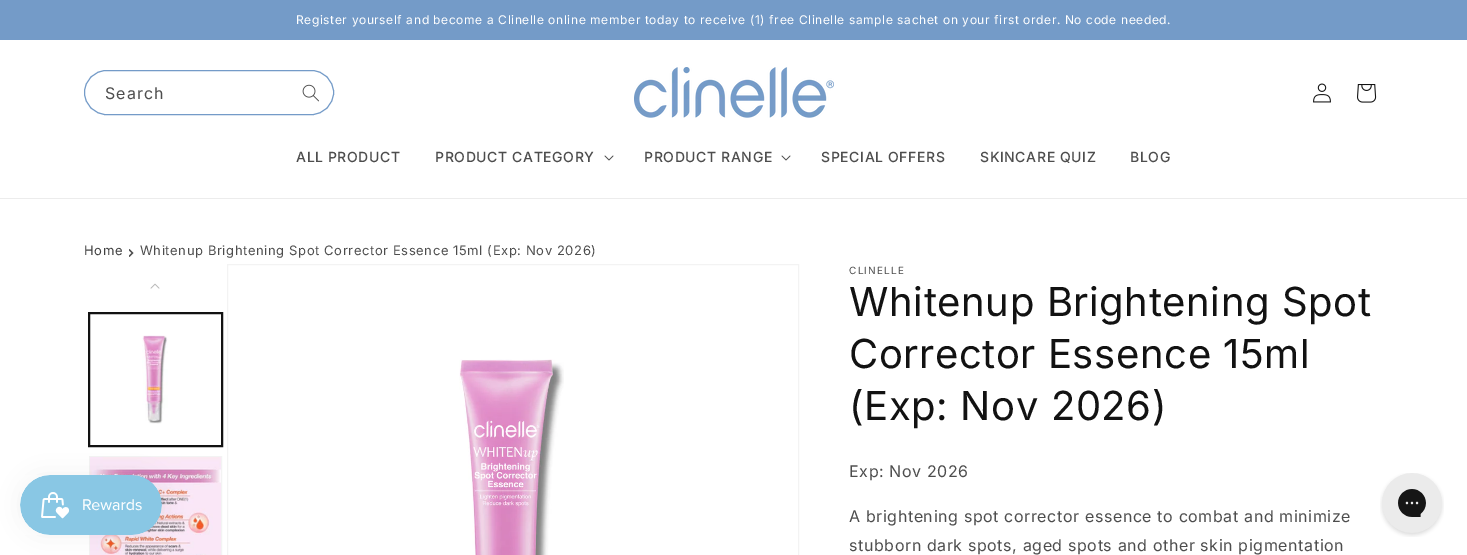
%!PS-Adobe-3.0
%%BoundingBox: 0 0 1467 555
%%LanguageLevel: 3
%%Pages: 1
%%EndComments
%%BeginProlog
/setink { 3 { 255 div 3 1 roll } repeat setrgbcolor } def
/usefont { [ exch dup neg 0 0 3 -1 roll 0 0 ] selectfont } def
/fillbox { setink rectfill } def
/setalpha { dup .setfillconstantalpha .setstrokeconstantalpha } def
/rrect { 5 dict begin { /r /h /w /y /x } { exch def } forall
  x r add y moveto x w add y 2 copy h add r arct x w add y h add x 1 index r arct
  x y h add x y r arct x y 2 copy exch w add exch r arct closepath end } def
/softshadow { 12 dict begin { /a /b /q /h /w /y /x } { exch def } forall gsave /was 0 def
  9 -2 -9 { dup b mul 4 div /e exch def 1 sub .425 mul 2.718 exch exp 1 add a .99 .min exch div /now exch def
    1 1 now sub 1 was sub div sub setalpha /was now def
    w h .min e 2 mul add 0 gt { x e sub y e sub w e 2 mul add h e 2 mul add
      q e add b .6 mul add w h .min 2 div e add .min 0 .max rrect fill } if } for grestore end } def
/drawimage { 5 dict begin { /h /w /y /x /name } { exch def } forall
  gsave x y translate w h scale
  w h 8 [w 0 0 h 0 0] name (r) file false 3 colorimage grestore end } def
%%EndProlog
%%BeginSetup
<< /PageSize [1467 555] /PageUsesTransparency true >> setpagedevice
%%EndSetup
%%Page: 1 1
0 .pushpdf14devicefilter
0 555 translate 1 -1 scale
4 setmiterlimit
0 0 1467 555 255 255 255 fillbox
0 0 1467 40 116 155 200 fillbox
/Inter-Regular 12 usefont
255 255 255 setink
296 24 moveto 0.6 0 (Register yourself and become a Clinelle online member today to receive \(1\) free Clinelle sample sachet on your first order. No code needed.) ashow
0 198 1467 1 236 236 236 fillbox
116 155 200 setink
84.5 70.5 249 44 22 rrect stroke
/Inter-Regular 16 usefont
77 77 77 setink
105 99 moveto 1 0 (Search) ashow
(assets/img1.rgb) 302 84 17 18 drawimage
(assets/img2.rgb) 634 67 200 51 drawimage
(assets/img3.rgb) 1313 83 18 20 drawimage
(assets/img4.rgb) 1357 84 20 19 drawimage
/Inter-Medium 14 usefont
296 162 moveto 0.6 0 (ALL PRODUCT) ashow
435 162 moveto 0.6 0 (PRODUCT CATEGORY) ashow
(assets/img5.rgb) 604 155 10 6 drawimage
644 162 moveto 0.6 0 (PRODUCT RANGE) ashow
(assets/img5.rgb) 781 155 10 6 drawimage
821 162 moveto 0.6 0 (SPECIAL OFFERS) ashow
980 162 moveto 0.6 0 (SKINCARE QUIZ) ashow
1130 162 moveto 0.6 0 (BLOG) ashow
/Inter-Regular 13 usefont
64 64 64 setink
84 255 moveto 0.6 0 (Home) ashow
gsave
129 257 moveto 129 249 lineto 134 249 lineto 134 257 lineto closepath clip newpath
77 77 77 setink
1.2 setlinewidth
129 256.5 moveto 132.5 253 lineto 129 249.5 lineto stroke
grestore
77 77 77 setink
140 255 moveto 0.6 0 (Whitenup Brightening Spot Corrector Essence 15ml \(Exp: Nov 2026\)) ashow
(assets/img6.rgb) 150 283 10 6 drawimage
18 18 18 setink
88.5 312.5 134 134 rectstroke
89.5 313.5 132 132 rectstroke
(assets/img7.rgb) 142 335 26 89 drawimage
243 243 243 setink
89.5 456.5 132 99 rectstroke
(assets/img8.rgb) 90 457 131 98 drawimage
227.5 264.5 571 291 rectstroke
(assets/img9.rgb) 459 359 105 196 drawimage
/Inter-Regular 10 usefont
77 77 77 setink
849 274 moveto 1.25 0 (CLINELLE) ashow
/Inter-Regular 40 usefont
18 18 18 setink
849 316 moveto 0.6 0 (Whitenup Brightening Spot) ashow
849 368 moveto 0.6 0 (Corrector Essence 15ml) ashow
849 420 moveto 0.6 0 (\(Exp: Nov 2026\)) ashow
/Inter-Regular 16 usefont
77 77 77 setink
849 477 moveto 0.6 0 (Exp: Nov 2026) ashow
849 522 moveto 0.6 0 (A brightening spot corrector essence to combat and minimize) ashow
849 551 moveto 0.6 0 (stubborn dark spots, aged spots and other skin pigmentation) ashow
0 0 0 setink
20 475 142 60 30 12.5 0.05 softshadow
(assets/img10.rgb) 20 475 142 60 drawimage
(assets/img11.rgb) 1380 473 64 64 drawimage
.poppdf14devicefilter showpage
%%EOF
